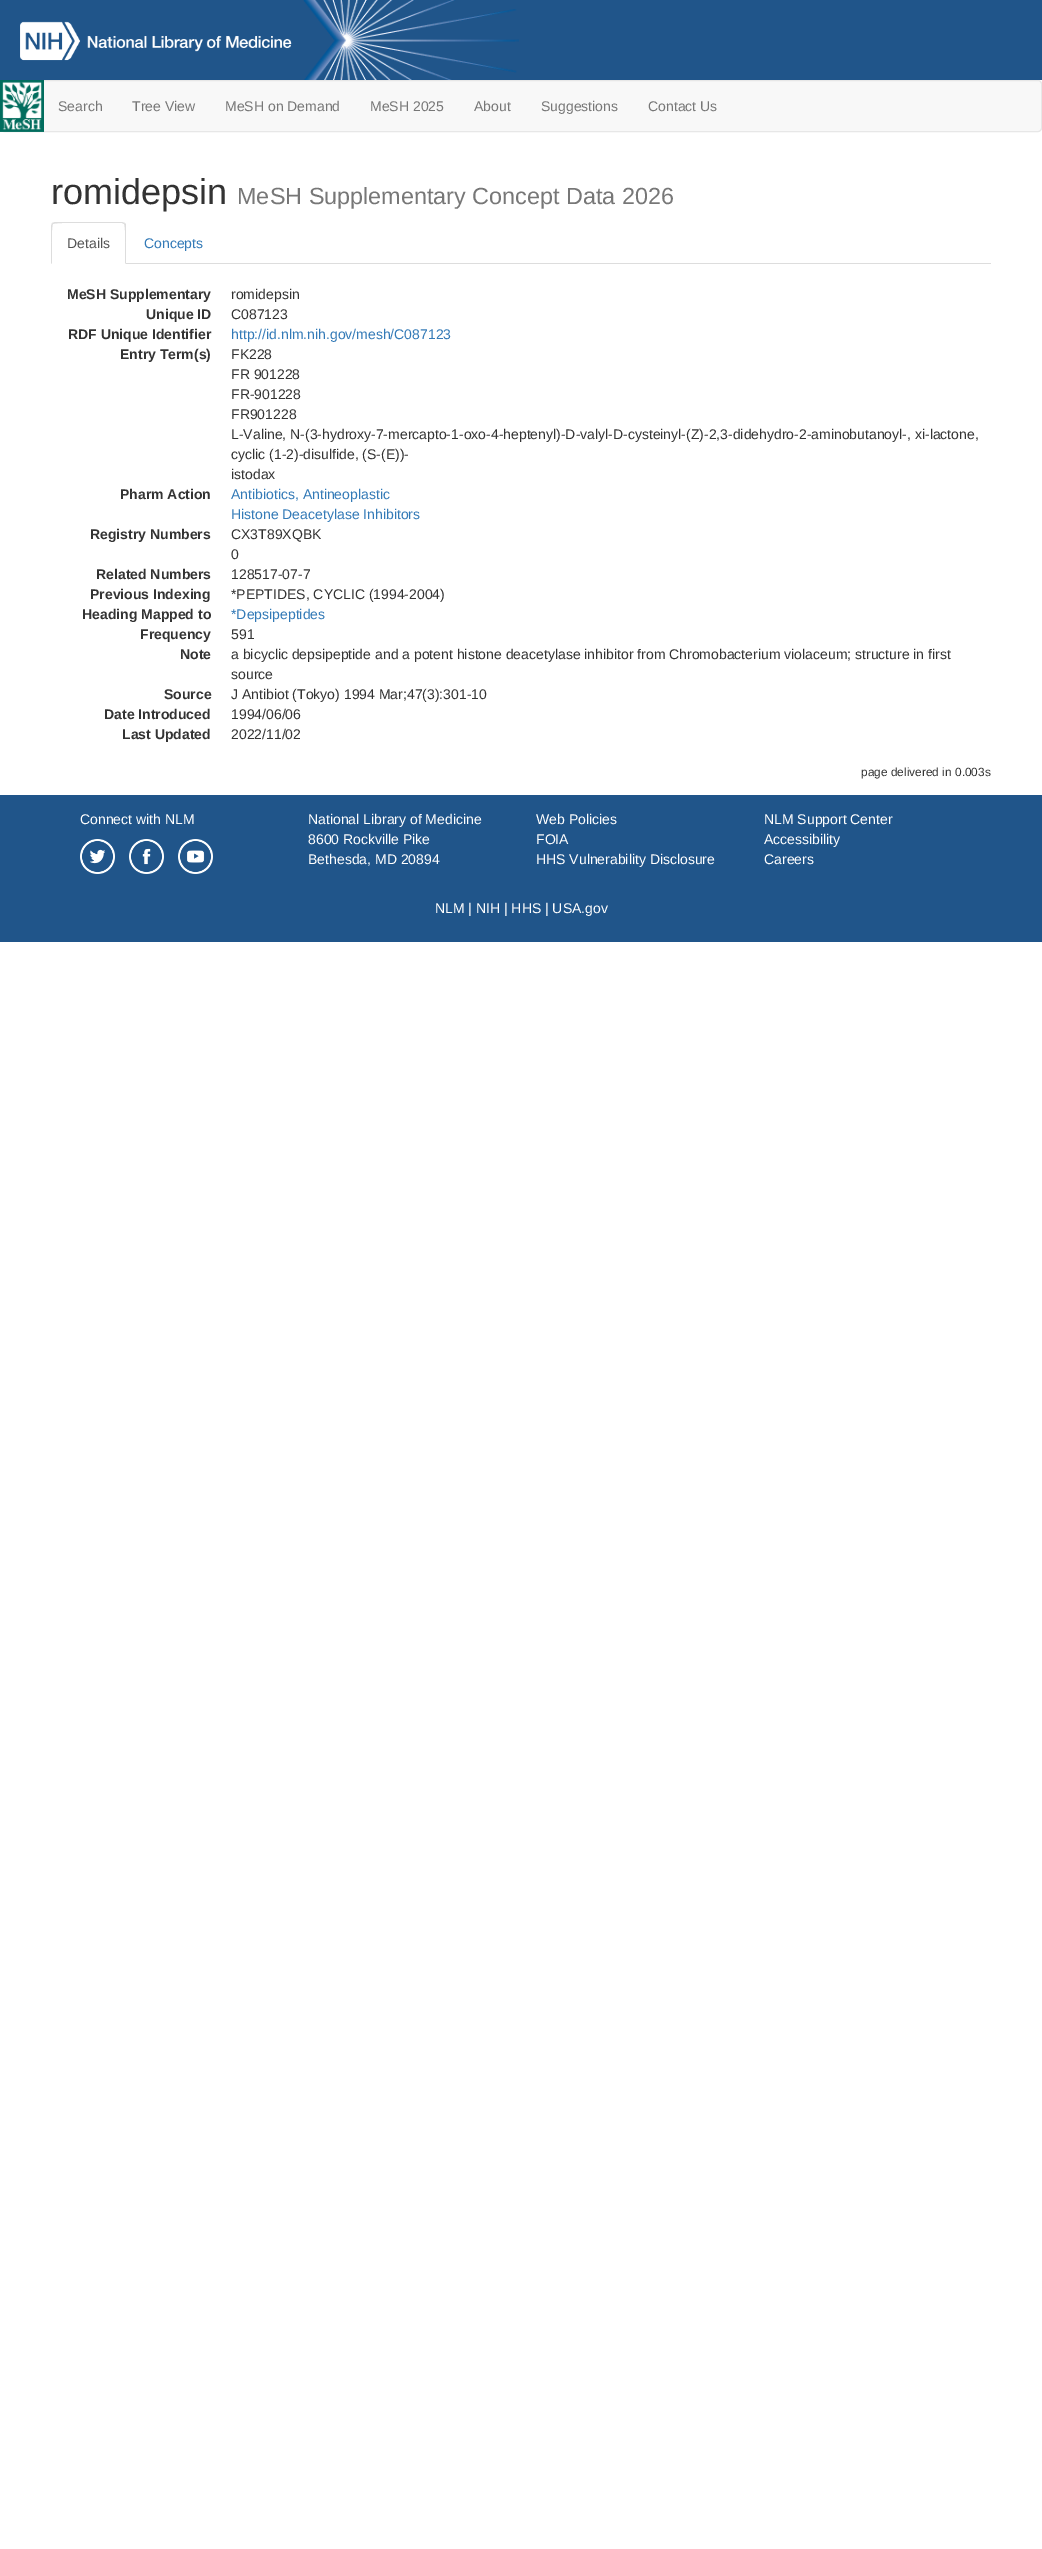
%!PS-Adobe-3.0
%%BoundingBox: 0 0 1042 2549
%%LanguageLevel: 3
%%Pages: 1
%%EndComments
%%BeginProlog
/setink { 3 { 255 div 3 1 roll } repeat setrgbcolor } def
/usefont { [ exch dup neg 0 0 3 -1 roll 0 0 ] selectfont } def
/drawtext { setink usefont moveto show } def
/fillbox { setink rectfill } def
/rrect { 5 dict begin { /r /h /w /y /x } { exch def } forall
  x r add y moveto x w add y 2 copy h add r arct x w add y h add x 1 index r arct
  x y h add x y r arct x y 2 copy exch w add exch r arct closepath end } def
/drawimage { 5 dict begin { /h /w /y /x /name } { exch def } forall
  gsave x y translate w h scale
  w h 8 [w 0 0 h 0 0] name (r) file false 3 colorimage grestore end } def
%%EndProlog
%%BeginSetup
<< /PageSize [1042 2549] >> setpagedevice
%%EndSetup
%%Page: 1 1
0 2549 translate 1 -1 scale
4 setmiterlimit
0 0 1042 2549 255 255 255 fillbox
0 0 1042 80 32 85 138 fillbox
(assets/img1.rgb) 303 0 216 80 drawimage
(assets/img2.rgb) 20 21 272 40 drawimage
248 248 248 setink
0.5 80.5 1041 51 3.5 rrect gsave fill grestore
231 231 231 setink
stroke
(assets/img3.rgb) 0 80 44 52 drawimage
(Search) 58 111 /LiberationSans-Regular 14 119 119 119 drawtext
(Tree View) 132 111 /LiberationSans-Regular 14 119 119 119 drawtext
(MeSH on Demand) 225 111 /LiberationSans-Regular 14 119 119 119 drawtext
(MeSH 2025) 370 111 /LiberationSans-Regular 14 119 119 119 drawtext
(About) 474 111 /LiberationSans-Regular 14 119 119 119 drawtext
(Suggestions) 541 111 /LiberationSans-Regular 14 119 119 119 drawtext
(Contact Us) 648 111 /LiberationSans-Regular 14 119 119 119 drawtext
(romidepsin) 51 204 /LiberationSans-Regular 36 51 51 51 drawtext
(MeSH Supplementary Concept Data 2026) 237 204 /LiberationSans-Regular 23.4 119 119 119 drawtext
126 263 865 1 221 221 221 fillbox
55 222 moveto 52 223 lineto 53 224 lineto 55 222 104 223 111 223 curveto 122 223 lineto 124 224 lineto 125 223 lineto 122 222 lineto closepath fill
126 264 moveto 126 226 lineto 126 225 126 224 125 223 curveto 124 224 lineto 126 226 125 258 125 263 curveto closepath fill
51 264 moveto 52 263 lineto 52 258 51 226 53 224 curveto 52 223 lineto 51 226 lineto closepath fill
(Details) 67 248 /LiberationSans-Regular 14 85 85 85 drawtext
(Concepts) 144 248 /LiberationSans-Regular 14 51 122 183 drawtext
(MeSH Supplementary) 67 299 /LiberationSans-Bold 14 51 51 51 drawtext
(romidepsin) 231 299 /LiberationSans-Regular 14 51 51 51 drawtext
(Unique ID) 146 319 /LiberationSans-Bold 14 51 51 51 drawtext
(C087123) 231 319 /LiberationSans-Regular 14 51 51 51 drawtext
(RDF Unique Identifier) 68 339 /LiberationSans-Bold 14 51 51 51 drawtext
(http://id.nlm.nih.gov/mesh/C087123) 231 339 /LiberationSans-Regular 14 51 122 183 drawtext
(Entry Term\(s\)) 120 359 /LiberationSans-Bold 14 51 51 51 drawtext
(FK228) 231 359 /LiberationSans-Regular 14 51 51 51 drawtext
(FR 901228) 231 379 /LiberationSans-Regular 14 51 51 51 drawtext
(FR-901228) 231 399 /LiberationSans-Regular 14 51 51 51 drawtext
(FR901228) 231 419 /LiberationSans-Regular 14 51 51 51 drawtext
(L-Valine, N-\(3-hydroxy-7-mercapto-1-oxo-4-heptenyl\)-D-valyl-D-cysteinyl-\(Z\)-2,3-didehydro-2-aminobutanoyl-, xi-lactone,) 231 439 /LiberationSans-Regular 14 51 51 51 drawtext
(cyclic \(1-2\)-disulfide, \(S-\(E\)\)-) 231 459 /LiberationSans-Regular 14 51 51 51 drawtext
(istodax) 231 479 /LiberationSans-Regular 14 51 51 51 drawtext
(Pharm Action) 120 499 /LiberationSans-Bold 14 51 51 51 drawtext
(Antibiotics, Antineoplastic) 231 499 /LiberationSans-Regular 14 51 122 183 drawtext
(Histone Deacetylase Inhibitors) 231 519 /LiberationSans-Regular 14 51 122 183 drawtext
(Registry Numbers) 90 539 /LiberationSans-Bold 14 51 51 51 drawtext
(CX3T89XQBK) 231 539 /LiberationSans-Regular 14 51 51 51 drawtext
(0) 231 559 /LiberationSans-Regular 14 51 51 51 drawtext
(Related Numbers) 96 579 /LiberationSans-Bold 14 51 51 51 drawtext
(128517-07-7) 231 579 /LiberationSans-Regular 14 51 51 51 drawtext
(Previous Indexing) 90 599 /LiberationSans-Bold 14 51 51 51 drawtext
(*PEPTIDES, CYCLIC \(1994-2004\)) 231 599 /LiberationSans-Regular 14 51 51 51 drawtext
(Heading Mapped to) 82 619 /LiberationSans-Bold 14 51 51 51 drawtext
(*Depsipeptides) 231 619 /LiberationSans-Regular 14 51 122 183 drawtext
(Frequency) 140 639 /LiberationSans-Bold 14 51 51 51 drawtext
(591) 231 639 /LiberationSans-Regular 14 51 51 51 drawtext
(Note) 180 659 /LiberationSans-Bold 14 51 51 51 drawtext
(a bicyclic depsipeptide and a potent histone deacetylase inhibitor from Chromobacterium violaceum; structure in first) 231 659 /LiberationSans-Regular 14 51 51 51 drawtext
(source) 231 679 /LiberationSans-Regular 14 51 51 51 drawtext
(Source) 164 699 /LiberationSans-Bold 14 51 51 51 drawtext
(J Antibiot \(Tokyo\) 1994 Mar;47\(3\):301-10) 231 699 /LiberationSans-Regular 14 51 51 51 drawtext
(Date Introduced) 104 719 /LiberationSans-Bold 14 51 51 51 drawtext
(1994/06/06) 231 719 /LiberationSans-Regular 14 51 51 51 drawtext
(Last Updated) 122 739 /LiberationSans-Bold 14 51 51 51 drawtext
(2022/11/02) 231 739 /LiberationSans-Regular 14 51 51 51 drawtext
(page delivered in 0.003s) 861 776 /LiberationSans-Regular 11.9 51 51 51 drawtext
0 795 1042 147 32 85 138 fillbox
(Connect with NLM) 80 824 /LiberationSans-Regular 14 255 255 255 drawtext
(assets/img4.rgb) 80 839 35 35 drawimage
(assets/img5.rgb) 129 839 35 35 drawimage
(assets/img6.rgb) 178 839 35 35 drawimage
(National Library of Medicine) 308 824 /LiberationSans-Regular 14 255 255 255 drawtext
(8600 Rockville Pike) 308 844 /LiberationSans-Regular 14 255 255 255 drawtext
(Bethesda, MD 20894) 308 864 /LiberationSans-Regular 14 255 255 255 drawtext
(Web Policies) 536 824 /LiberationSans-Regular 14 255 255 255 drawtext
(FOIA) 536 844 /LiberationSans-Regular 14 255 255 255 drawtext
(HHS Vulnerability Disclosure) 536 864 /LiberationSans-Regular 14 255 255 255 drawtext
(NLM Support Center) 764 824 /LiberationSans-Regular 14 255 255 255 drawtext
(Accessibility) 764 844 /LiberationSans-Regular 14 255 255 255 drawtext
(Careers) 764 864 /LiberationSans-Regular 14 255 255 255 drawtext
(NLM | NIH | HHS | USA.gov) 435 913 /LiberationSans-Regular 14 255 255 255 drawtext
showpage
%%EOF
